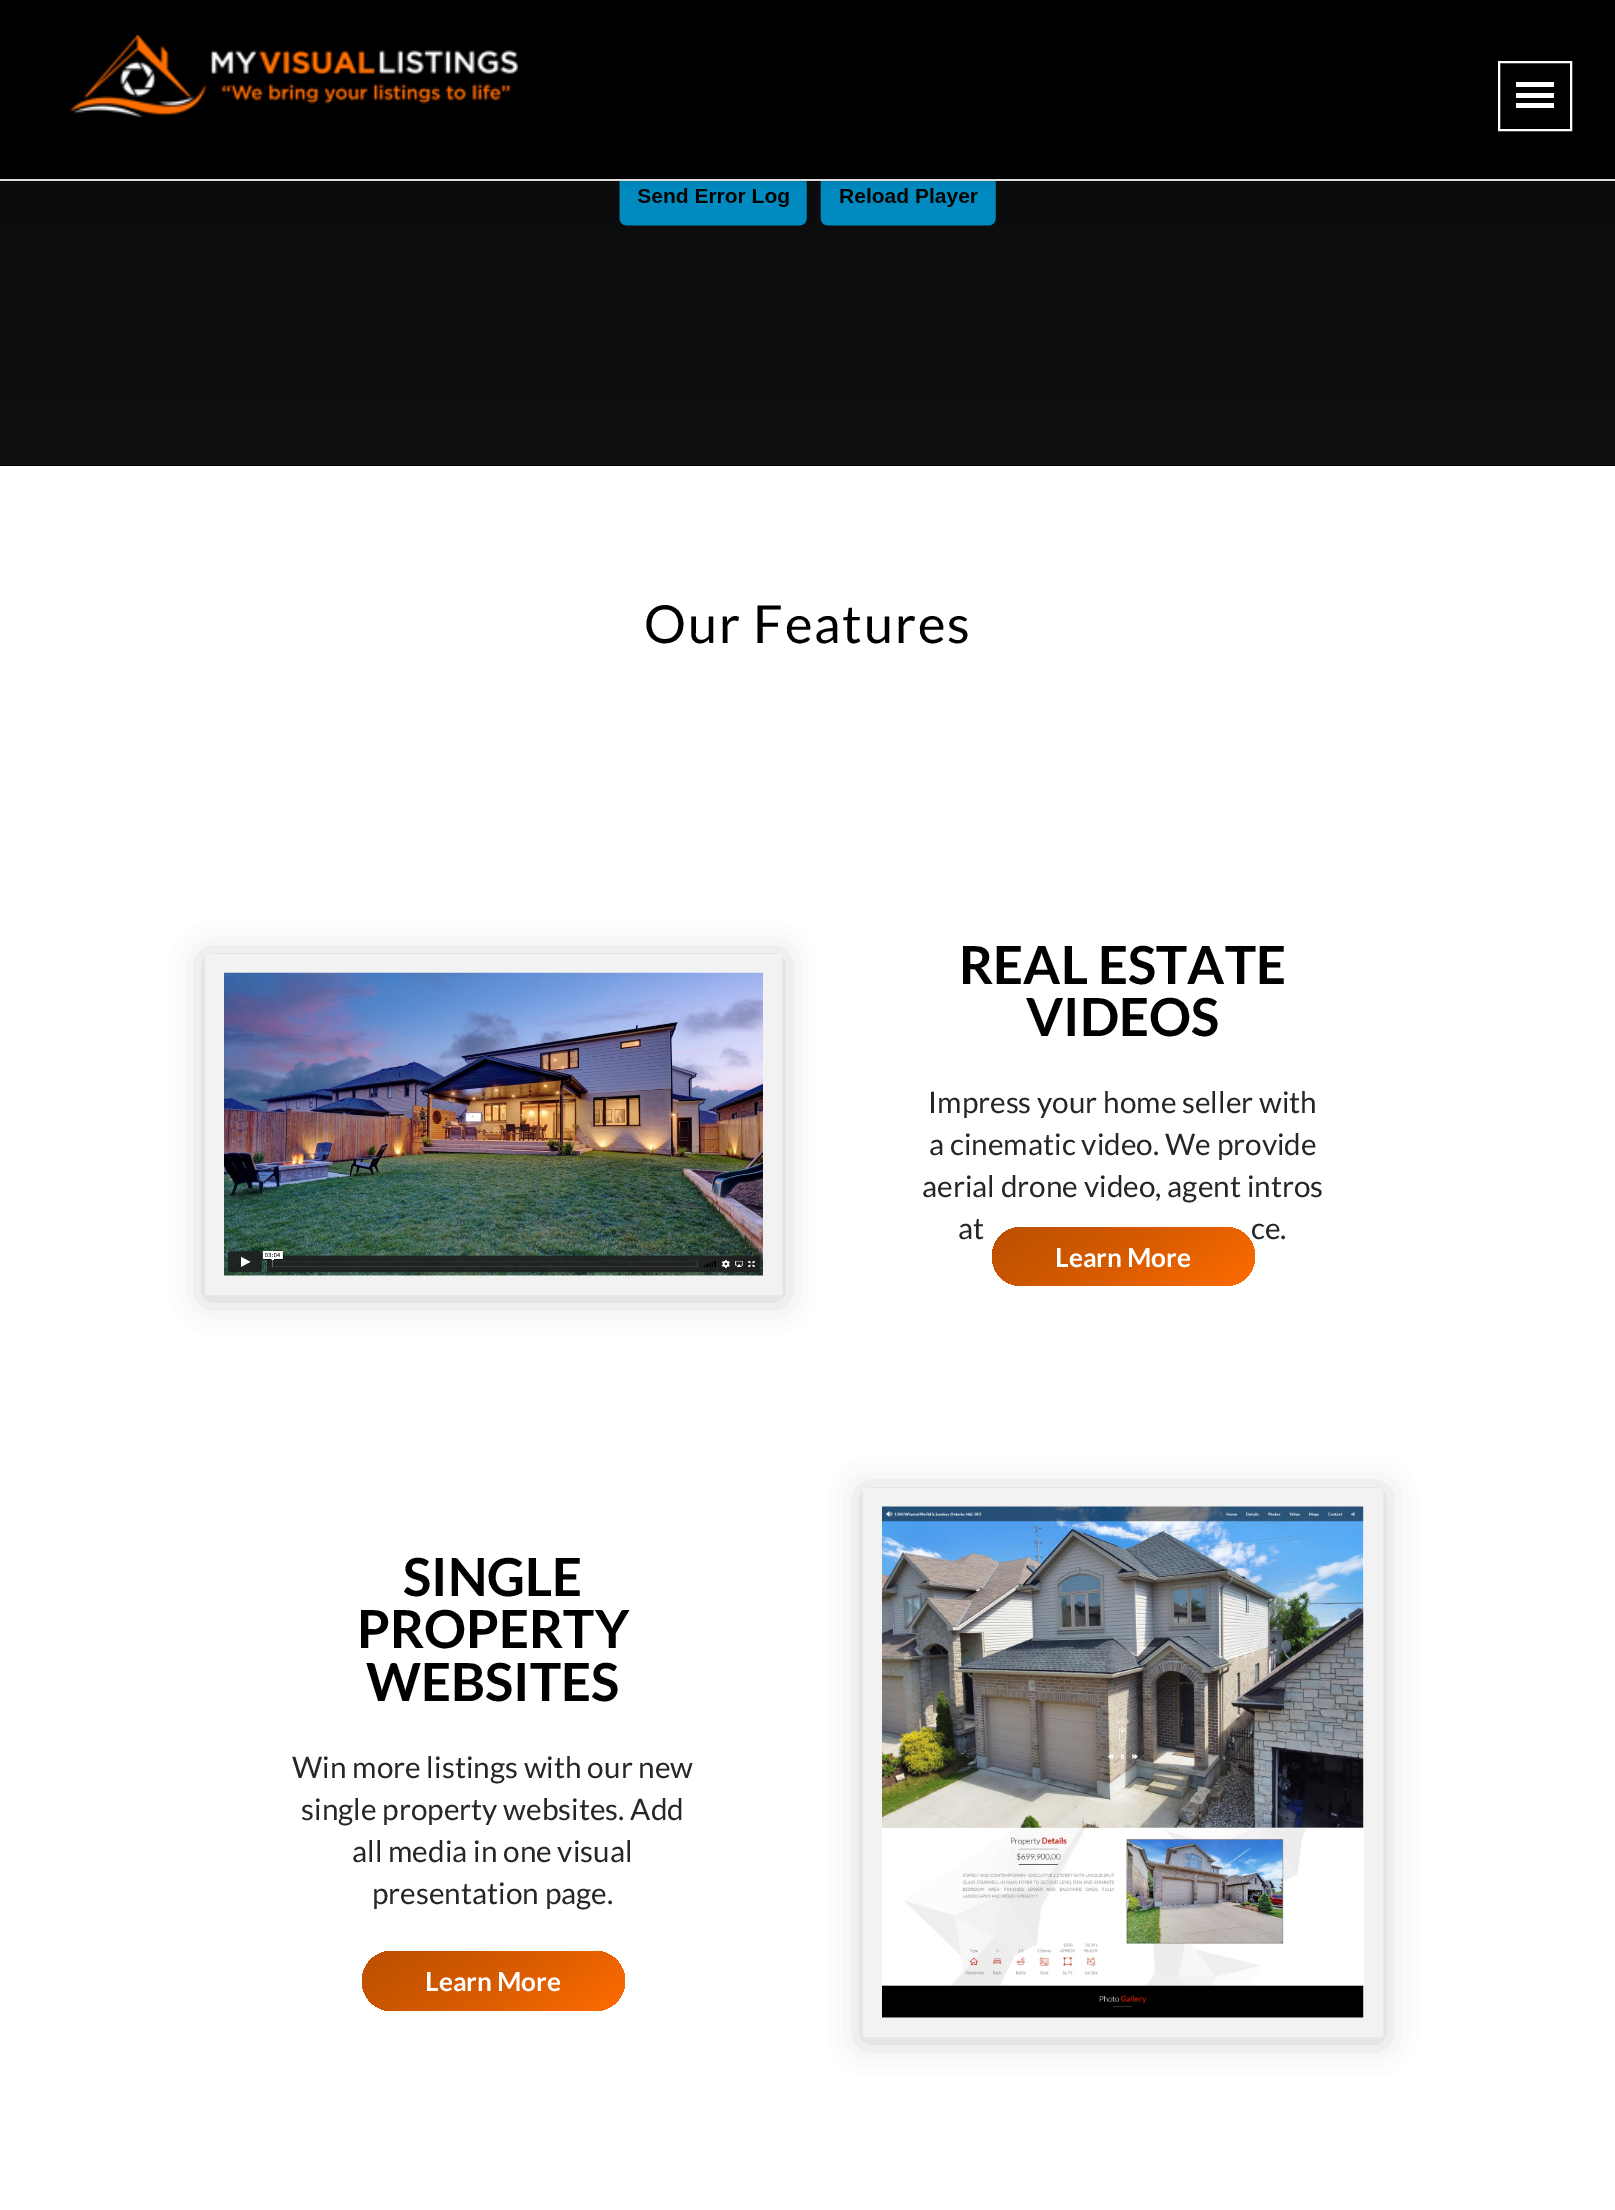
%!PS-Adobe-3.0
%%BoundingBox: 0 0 1615 2210
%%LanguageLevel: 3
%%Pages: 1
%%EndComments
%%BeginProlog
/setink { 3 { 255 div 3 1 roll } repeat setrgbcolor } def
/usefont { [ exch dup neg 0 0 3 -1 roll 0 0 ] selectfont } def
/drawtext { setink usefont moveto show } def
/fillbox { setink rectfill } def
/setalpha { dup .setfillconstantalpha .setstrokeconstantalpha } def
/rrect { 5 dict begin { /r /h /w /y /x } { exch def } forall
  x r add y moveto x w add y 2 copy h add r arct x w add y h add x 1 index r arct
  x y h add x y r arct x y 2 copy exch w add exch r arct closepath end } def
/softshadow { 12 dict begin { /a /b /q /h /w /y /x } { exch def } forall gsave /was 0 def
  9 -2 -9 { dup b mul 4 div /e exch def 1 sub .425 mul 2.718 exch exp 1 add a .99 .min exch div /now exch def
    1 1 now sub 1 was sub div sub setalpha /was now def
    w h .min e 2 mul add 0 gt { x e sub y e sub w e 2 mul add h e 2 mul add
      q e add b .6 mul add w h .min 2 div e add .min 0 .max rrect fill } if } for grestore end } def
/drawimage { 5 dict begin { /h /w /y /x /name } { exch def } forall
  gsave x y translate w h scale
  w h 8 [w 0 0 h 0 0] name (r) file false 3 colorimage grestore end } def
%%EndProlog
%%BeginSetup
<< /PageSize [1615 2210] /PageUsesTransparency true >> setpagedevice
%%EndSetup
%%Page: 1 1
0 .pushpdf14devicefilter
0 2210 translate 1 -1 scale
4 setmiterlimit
0 0 1615 2210 255 255 255 fillbox
0 181 1615 285 0 0 0 fillbox
(assets/img2.rgb) 0 181 1615 284 drawimage
0 0 1615 180 0 4.5 0.2 softshadow
0 0 1615 179 0 0 0 fillbox
0 179 1615 2 221 221 221 fillbox
(assets/img1.rgb) 70 35 448 82 drawimage
255 255 255 setink
2 setlinewidth
1499 62 72 68 rectstroke
1516 82 38 5 255 255 255 fillbox
1516 93 38 5 255 255 255 fillbox
1516 103 38 5 255 255 255 fillbox
/Lato-Regular 52.5 usefont
0 0 0 setink
644 643 moveto 1.75 0 (Our Features) ashow
205 957 577 342 0 16 0.2 softshadow
242 242 242 setink
19 setlinewidth
214.5 963.5 558 322 rectstroke
(assets/img3.rgb) 224 972 539 304 drawimage
(REAL ESTATE) 959 984 /Lato-Bold 52.5 0 0 0 drawtext
(VIDEOS) 1026 1036 /Lato-Bold 52.5 0 0 0 drawtext
(Impress your home seller with) 928 1113 /Lato-Regular 29.75 38 38 38 drawtext
(a cinematic video. We provide) 929 1155 /Lato-Regular 29.75 38 38 38 drawtext
(aerial drone video, agent intros) 922 1197 /Lato-Regular 29.75 38 38 38 drawtext
(at) 958 1239 /Lato-Regular 29.75 38 38 38 drawtext
(ce.) 1251 1239 /Lato-Regular 29.75 38 38 38 drawtext
gsave 992 1227 263 59 29.5 rrect clip newpath
<< /ShadingType 2 /ColorSpace /DeviceRGB /Coords [1069 1175 1178 1338] /Extend [true true] /Function << /FunctionType 3 /Domain [0 1] /Functions [<< /FunctionType 2 /Domain [0 1] /C0 [0.729 0.31 0] /C1 [0.851 0.361 0] /N 1 >> << /FunctionType 2 /Domain [0 1] /C0 [0.851 0.361 0] /C1 [1 0.424 0] /N 1 >>] /Bounds [0.53] /Encode [0 1 0 1] >> >> shfill grestore
(Learn More) 1055 1267 /Lato-Bold 26.25 255 255 255 drawtext
(SINGLE) 403 1596 /Lato-Bold 52.5 0 0 0 drawtext
(PROPERTY) 357 1648 /Lato-Bold 52.5 0 0 0 drawtext
(WEBSITES) 366 1701 /Lato-Bold 52.5 0 0 0 drawtext
(Win more listings with our new) 292 1778 /Lato-Regular 29.75 38 38 38 drawtext
(single property websites. Add) 301 1820 /Lato-Regular 29.75 38 38 38 drawtext
(all media in one visual) 352 1862 /Lato-Regular 29.75 38 38 38 drawtext
(presentation page.) 372 1904 /Lato-Regular 29.75 38 38 38 drawtext
gsave 362 1951 263 60 30 rrect clip newpath
<< /ShadingType 2 /ColorSpace /DeviceRGB /Coords [439 1900 548 2062] /Extend [true true] /Function << /FunctionType 3 /Domain [0 1] /Functions [<< /FunctionType 2 /Domain [0 1] /C0 [0.729 0.31 0] /C1 [0.851 0.361 0] /N 1 >> << /FunctionType 2 /Domain [0 1] /C0 [0.851 0.361 0] /C1 [1 0.424 0] /N 1 >>] /Bounds [0.53] /Encode [0 1 0 1] >> >> shfill grestore
(Learn More) 425 1991 /Lato-Bold 26.25 255 255 255 drawtext
0 0 0 setink
863 1491 520 550 0 16 0.2 softshadow
242 242 242 setink
872.5 1497.5 501 530 rectstroke
(assets/img4.rgb) 882 1506 482 512 drawimage
.poppdf14devicefilter showpage
%%EOF
